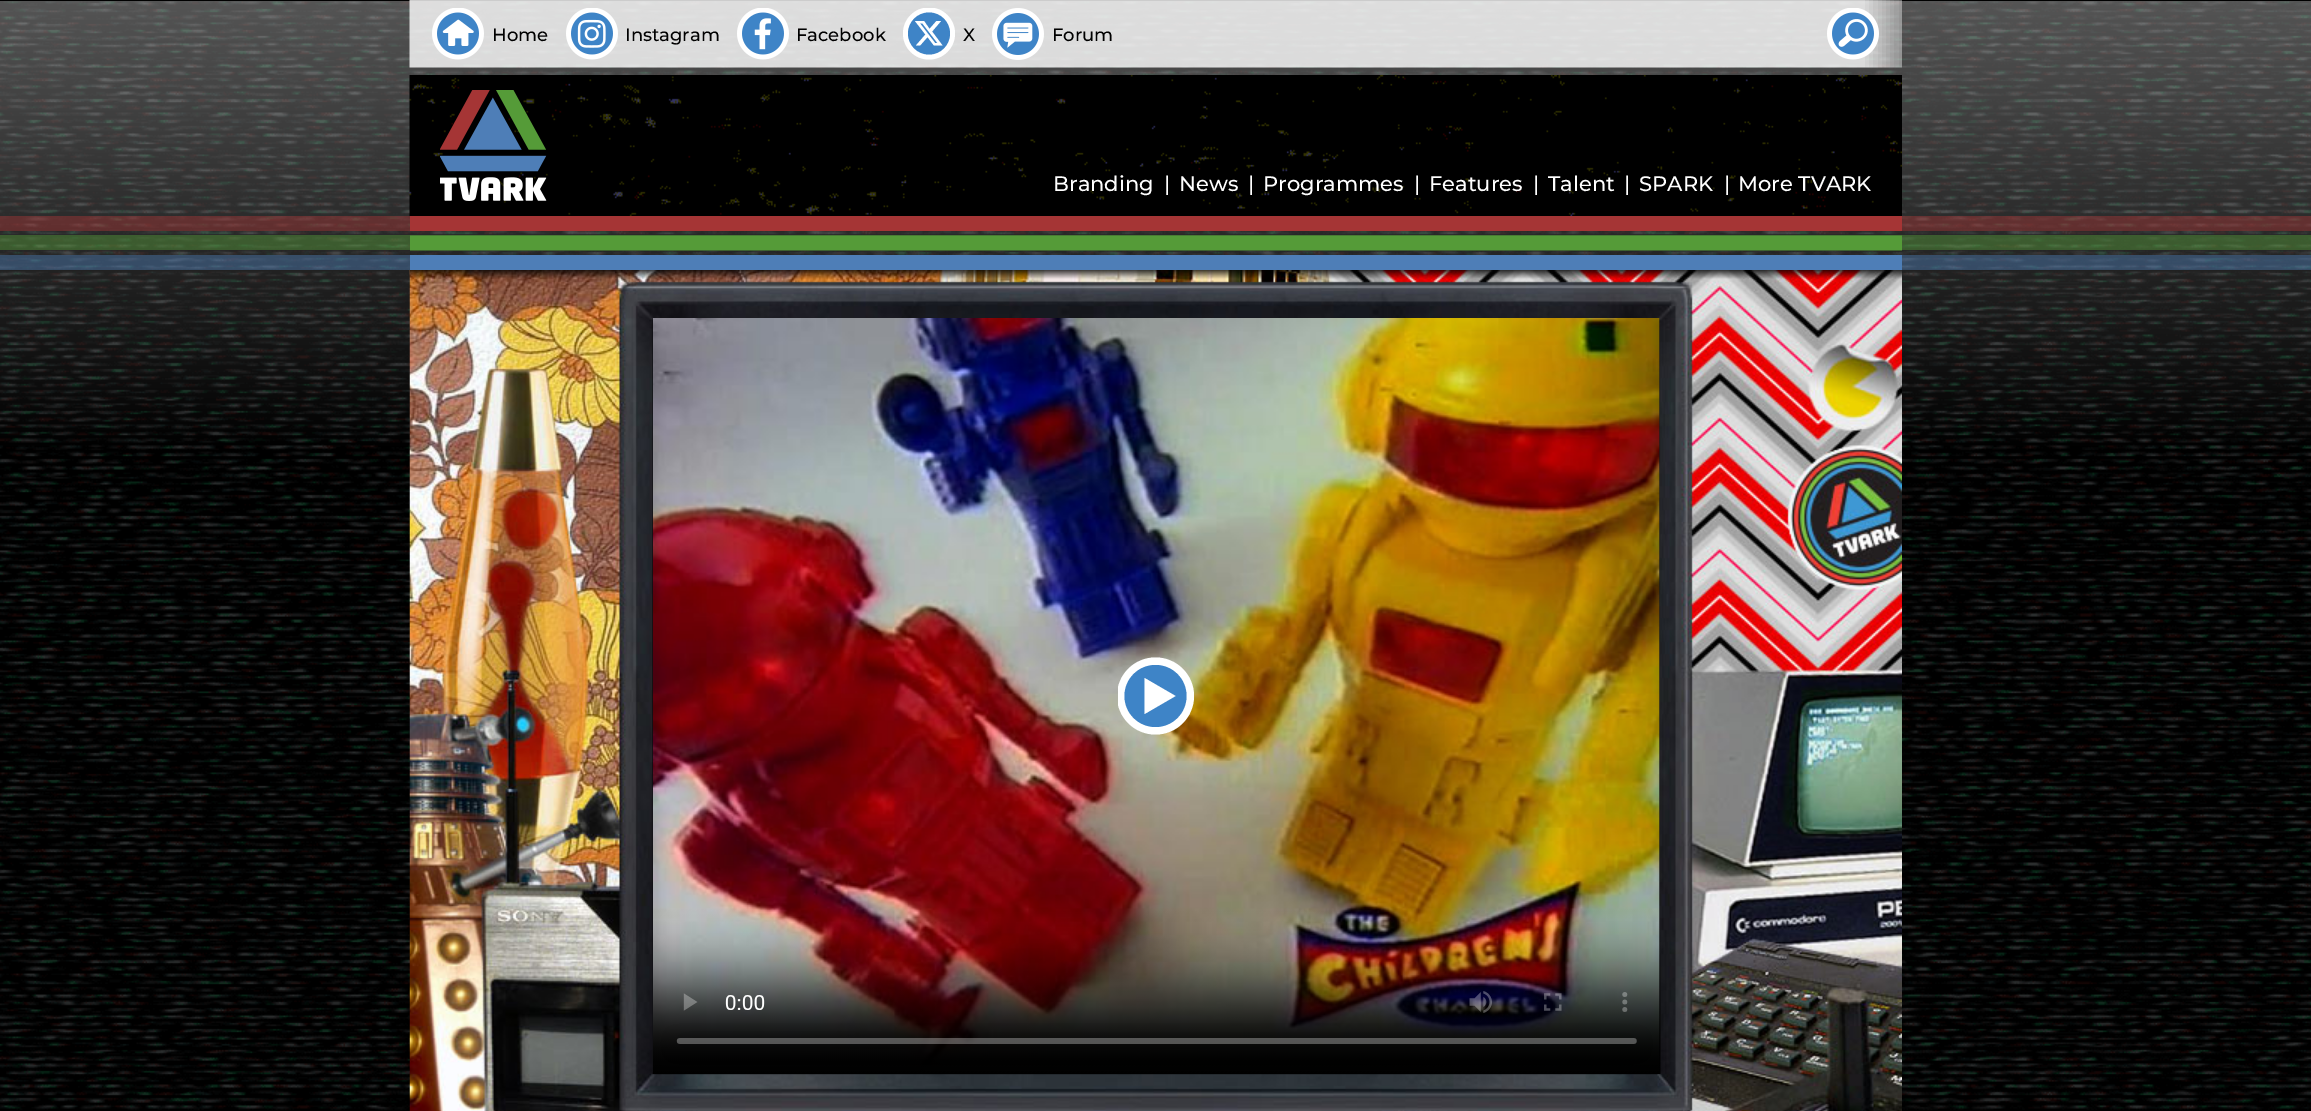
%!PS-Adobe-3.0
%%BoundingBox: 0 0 2311 1111
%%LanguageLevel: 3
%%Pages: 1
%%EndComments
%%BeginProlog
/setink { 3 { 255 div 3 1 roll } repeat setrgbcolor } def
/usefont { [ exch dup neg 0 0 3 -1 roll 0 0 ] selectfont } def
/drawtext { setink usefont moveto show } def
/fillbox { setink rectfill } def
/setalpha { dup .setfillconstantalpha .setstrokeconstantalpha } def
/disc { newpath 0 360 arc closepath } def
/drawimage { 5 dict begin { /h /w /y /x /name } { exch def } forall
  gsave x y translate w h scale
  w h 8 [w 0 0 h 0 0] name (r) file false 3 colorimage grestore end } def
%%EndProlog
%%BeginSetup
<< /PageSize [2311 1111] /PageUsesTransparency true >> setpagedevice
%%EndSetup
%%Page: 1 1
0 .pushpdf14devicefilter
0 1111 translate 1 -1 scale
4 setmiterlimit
0 0 2311 1111 255 255 255 fillbox
(assets/img1.rgb) 0 0 2311 1111 drawimage
0.45 setalpha
0 235 2311 15 85 155 56 fillbox
0 216 2311 15 165 53 53 fillbox
0 255 2311 15 78 126 183 fillbox
1 setalpha
(assets/img2.rgb) 410 216 1492 54 drawimage
(assets/img3.rgb) 409 0 1493 68 drawimage
(assets/img4.rgb) 432 8 52 52 drawimage
(Home) 492 41 /Montserrat-Medium 18 0 0 0 drawtext
(assets/img5.rgb) 566 8 52 52 drawimage
(Instagram) 625 41 /Montserrat-Medium 18 0 0 0 drawtext
(assets/img6.rgb) 737 8 52 52 drawimage
(Facebook) 796 41 /Montserrat-Medium 18 0 0 0 drawtext
gsave
903 8 53 52 rectclip
255 255 255 setink
929 33.5 26 disc fill
grestore
62 132 199 setink
929 33.5 21 disc fill
255 255 255 setink
936.5 21 moveto 941 21 lineto 932 31.5 lineto 942.5 45.5 lineto 934 45.5 lineto 927.5 37 lineto 920 45.5 lineto 916 45.5 lineto 925.5 34.5 lineto 915 21 lineto 924 21 lineto 929.5 29 lineto closepath 935 43 moveto 937.5 43 lineto 922.5 23.5 lineto 920 23.5 lineto closepath fill
(X) 963 41 /Montserrat-Medium 18 0 0 0 drawtext
(assets/img7.rgb) 992 8 52 52 drawimage
(Forum) 1052 41 /Montserrat-Medium 18 0 0 0 drawtext
(assets/img8.rgb) 1827 8 52 52 drawimage
(assets/img9.rgb) 409 75 1493 141 drawimage
(assets/img10.rgb) 440 90 107 111 drawimage
(Branding) 1053 191 /Montserrat-Medium 21 255 255 255 drawtext
(|) 1164 191 /Montserrat-Medium 21 255 255 255 drawtext
(News) 1179 191 /Montserrat-Medium 21 255 255 255 drawtext
(|) 1248 191 /Montserrat-Medium 21 255 255 255 drawtext
(Programmes) 1263 191 /Montserrat-Medium 21 255 255 255 drawtext
(|) 1414 191 /Montserrat-Medium 21 255 255 255 drawtext
(Features) 1429 191 /Montserrat-Medium 21 255 255 255 drawtext
(|) 1533 191 /Montserrat-Medium 21 255 255 255 drawtext
(Talent) 1548 191 /Montserrat-Medium 21 255 255 255 drawtext
(|) 1624 191 /Montserrat-Medium 21 255 255 255 drawtext
(SPARK) 1639 191 /Montserrat-Medium 21 255 255 255 drawtext
(|) 1724 191 /Montserrat-Medium 21 255 255 255 drawtext
(More TVARK) 1738 191 /Montserrat-Medium 21 255 255 255 drawtext
(assets/img11.rgb) 409 270 1493 841 drawimage
(assets/img12.rgb) 652 318 1009 756 drawimage
gsave
1118 657 78 78 rectclip
1155.5 696 38.5 disc fill
grestore
62 132 199 setink
1155.5 696 31 disc fill
255 255 255 setink
1144.5 714 moveto 1175.5 696 lineto 1144.5 678 lineto closepath fill
.poppdf14devicefilter showpage
%%EOF
